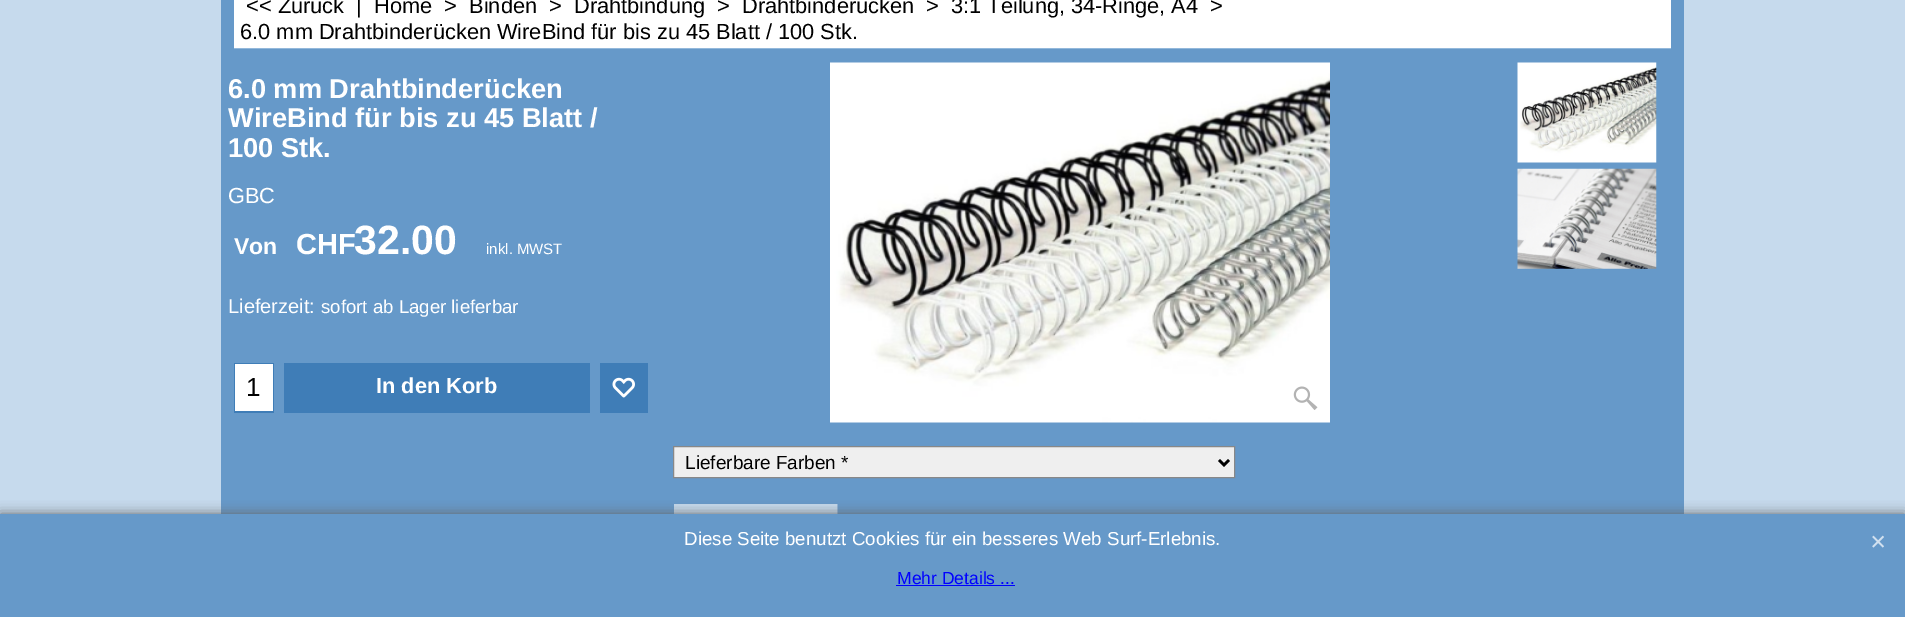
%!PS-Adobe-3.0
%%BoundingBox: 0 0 1905 617
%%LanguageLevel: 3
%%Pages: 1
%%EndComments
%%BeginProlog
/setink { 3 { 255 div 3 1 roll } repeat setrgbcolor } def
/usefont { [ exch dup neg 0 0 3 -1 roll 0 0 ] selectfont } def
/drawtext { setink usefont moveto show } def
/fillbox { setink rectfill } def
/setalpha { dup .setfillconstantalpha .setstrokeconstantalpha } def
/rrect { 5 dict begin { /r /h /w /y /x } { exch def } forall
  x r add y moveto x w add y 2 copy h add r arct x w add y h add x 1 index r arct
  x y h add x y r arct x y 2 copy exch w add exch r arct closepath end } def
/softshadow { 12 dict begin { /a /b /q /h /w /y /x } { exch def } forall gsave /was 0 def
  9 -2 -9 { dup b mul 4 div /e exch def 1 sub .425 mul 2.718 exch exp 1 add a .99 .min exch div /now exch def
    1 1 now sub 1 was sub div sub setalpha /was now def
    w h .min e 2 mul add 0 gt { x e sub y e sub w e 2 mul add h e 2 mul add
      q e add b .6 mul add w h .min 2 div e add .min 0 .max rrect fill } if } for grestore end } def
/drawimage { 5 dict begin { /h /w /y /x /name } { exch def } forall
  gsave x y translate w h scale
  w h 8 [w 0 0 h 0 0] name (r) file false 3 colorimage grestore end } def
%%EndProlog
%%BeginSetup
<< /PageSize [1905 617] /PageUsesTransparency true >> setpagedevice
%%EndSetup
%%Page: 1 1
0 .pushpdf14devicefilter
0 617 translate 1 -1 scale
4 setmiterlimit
0 0 1905 617 198 218 237 fillbox
221 0 1463 514 102 153 201 fillbox
234 0 1437 48 255 255 255 fillbox
234 48 1437 1 147 184 219 fillbox
(<< Zurück) 246 13 /LiberationSans-Regular 21.8 0 0 0 drawtext
(|) 356 13 /LiberationSans-Regular 21.8 0 0 0 drawtext
(Home) 374 13 /LiberationSans-Regular 21.8 0 0 0 drawtext
(>) 444 13 /LiberationSans-Regular 21.8 0 0 0 drawtext
(Binden) 469 13 /LiberationSans-Regular 21.8 0 0 0 drawtext
(>) 549 13 /LiberationSans-Regular 21.8 0 0 0 drawtext
(Drahtbindung) 574 13 /LiberationSans-Regular 21.8 0 0 0 drawtext
(>) 717 13 /LiberationSans-Regular 21.8 0 0 0 drawtext
(Drahtbinderücken) 742 13 /LiberationSans-Regular 21.8 0 0 0 drawtext
(>) 926 13 /LiberationSans-Regular 21.8 0 0 0 drawtext
(3:1 Teilung, 34-Ringe, A4) 951 13 /LiberationSans-Regular 21.8 0 0 0 drawtext
(>) 1210 13 /LiberationSans-Regular 21.8 0 0 0 drawtext
(6.0 mm Drahtbinderücken WireBind für bis zu 45 Blatt / 100 Stk.) 240 39 /LiberationSans-Regular 21.8 0 0 0 drawtext
(6.0 mm Drahtbinderücken) 228 98 /LiberationSans-Bold 27.25 255 255 255 drawtext
(WireBind für bis zu 45 Blatt /) 228 127 /LiberationSans-Bold 27.25 255 255 255 drawtext
(100 Stk.) 228 157 /LiberationSans-Bold 27.25 255 255 255 drawtext
(GBC) 228 203 /LiberationSans-Regular 21.8 255 255 255 drawtext
(Von) 234 254 /LiberationSans-Bold 23 255 255 255 drawtext
(CHF) 296 254 /LiberationSans-Bold 29 255 255 255 drawtext
(32.00) 354 254 /LiberationSans-Bold 41 255 255 255 drawtext
(inkl. MWST) 486 254 /LiberationSans-Regular 15 255 255 255 drawtext
(Lieferzeit:) 228 313 /LiberationSans-Regular 20 255 255 255 drawtext
(sofort ab Lager lieferbar) 321 313 /LiberationSans-Regular 18.6 255 255 255 drawtext
234 363 40 50 63 125 183 fillbox
235 364 38 47 255 255 255 fillbox
(1) 246 396 /LiberationSans-Regular 26 0 0 0 drawtext
284 363 306 50 63 125 183 fillbox
(In den Korb) 376 393 /LiberationSans-Bold 21.8 255 255 255 drawtext
600 363 48 50 63 125 183 fillbox
(assets/img1.rgb) 612 377 23 21 drawimage
(assets/img2.rgb) 830 62 500 361 drawimage
(assets/img3.rgb) 1293 386 25 24 drawimage
(assets/img4.rgb) 1517 62 140 101 drawimage
(assets/img5.rgb) 1517 168 140 101 drawimage
239 239 239 setink
673.5 446.5 moveto 1234.5 446.5 lineto 1234.5 477.5 lineto 673.5 477.5 lineto closepath gsave fill grestore
136 136 136 setink
stroke
0 0 0 setink
2.5 setlinewidth
1219 460 moveto 1224 465 lineto 1229 460 lineto stroke
(Lieferbare Farben *) 685 469 /LiberationSans-Regular 19 0 0 0 drawtext
674 504 164 10 198 218 237 fillbox
102 153 201 setink
839 502.5 moveto 839 540 lineto 837.5 539 lineto 837.5 504 lineto closepath fill
gsave
673 503 998 37 rectclip
672.5 540 moveto 672.5 502.5 lineto 674 504 lineto 674 539 lineto closepath fill
grestore
102 102 102 setink
0 514 1905 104 0 6 1 softshadow
0 514 1905 103 102 153 201 fillbox
(Diese Seite benutzt Cookies für ein besseres Web Surf-Erlebnis.) 684 545 /LiberationSans-Regular 18.75 255 255 255 drawtext
(Mehr Details ...) 897 584 /LiberationSans-Regular 17.5 0 0 255 drawtext
896 585 119 1 0 0 255 fillbox
(assets/img6.rgb) 1872 535 12 13 drawimage
.poppdf14devicefilter showpage
%%EOF
